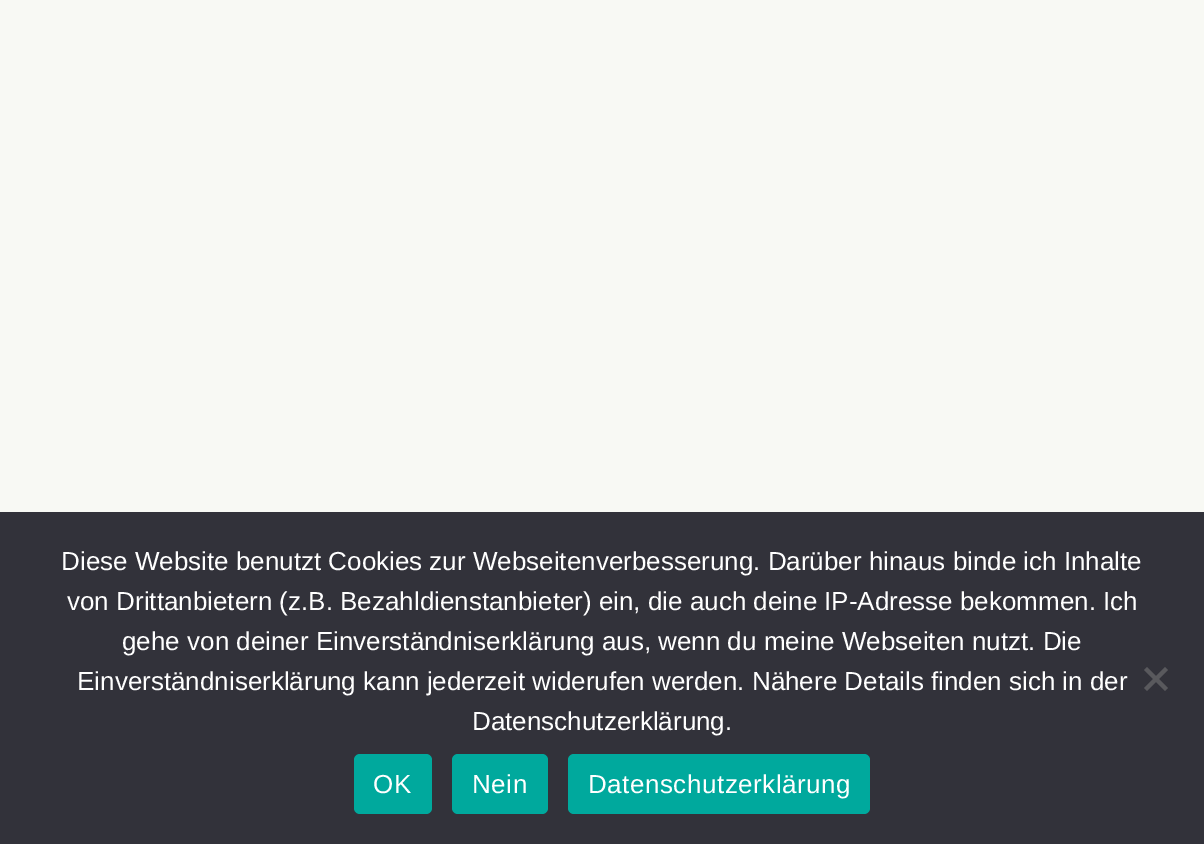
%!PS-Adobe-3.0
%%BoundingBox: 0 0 1204 844
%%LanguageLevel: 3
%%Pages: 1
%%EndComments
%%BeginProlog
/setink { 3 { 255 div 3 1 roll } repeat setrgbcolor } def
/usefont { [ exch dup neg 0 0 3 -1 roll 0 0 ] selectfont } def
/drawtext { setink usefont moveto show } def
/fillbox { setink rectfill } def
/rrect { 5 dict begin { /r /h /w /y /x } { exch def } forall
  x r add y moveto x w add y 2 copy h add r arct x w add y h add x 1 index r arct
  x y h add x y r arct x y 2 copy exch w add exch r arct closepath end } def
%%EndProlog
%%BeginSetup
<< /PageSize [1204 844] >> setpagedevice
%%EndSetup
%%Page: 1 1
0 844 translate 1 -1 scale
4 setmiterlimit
0 0 1204 844 248 249 244 fillbox
0 512 1204 332 50 50 58 fillbox
(Diese Website benutzt Cookies zur Webseitenverbesserung. Darüber hinaus binde ich Inhalte) 61 570 /LiberationSans-Regular 26 255 255 255 drawtext
(von Drittanbietern \(z.B. Bezahldienstanbieter\) ein, die auch deine IP-Adresse bekommen. Ich) 67 610 /LiberationSans-Regular 26 255 255 255 drawtext
(gehe von deiner Einverständniserklärung aus, wenn du meine Webseiten nutzt. Die) 122 650 /LiberationSans-Regular 26 255 255 255 drawtext
(Einverständniserklärung kann jederzeit widerufen werden. Nähere Details finden sich in der) 77 690 /LiberationSans-Regular 26 255 255 255 drawtext
(Datenschutzerklärung.) 472 730 /LiberationSans-Regular 26 255 255 255 drawtext
89 89 93 setink
1165 667 moveto 1168 670 lineto 1147 691 lineto 1144 688 lineto closepath fill
1144 670 moveto 1147 667 lineto 1168 688 lineto 1165 691 lineto closepath fill
0 169 157 setink
354 754 78 60 6 rrect fill
255 255 255 setink
373 793 moveto 0.5 0 (OK) ashow
0 169 157 setink
452 754 96 60 6 rrect fill
255 255 255 setink
472 793 moveto 0.5 0 (Nein) ashow
0 169 157 setink
568 754 302 60 6 rrect fill
255 255 255 setink
588 793 moveto 0.5 0 (Datenschutzerklärung) ashow
showpage
%%EOF
